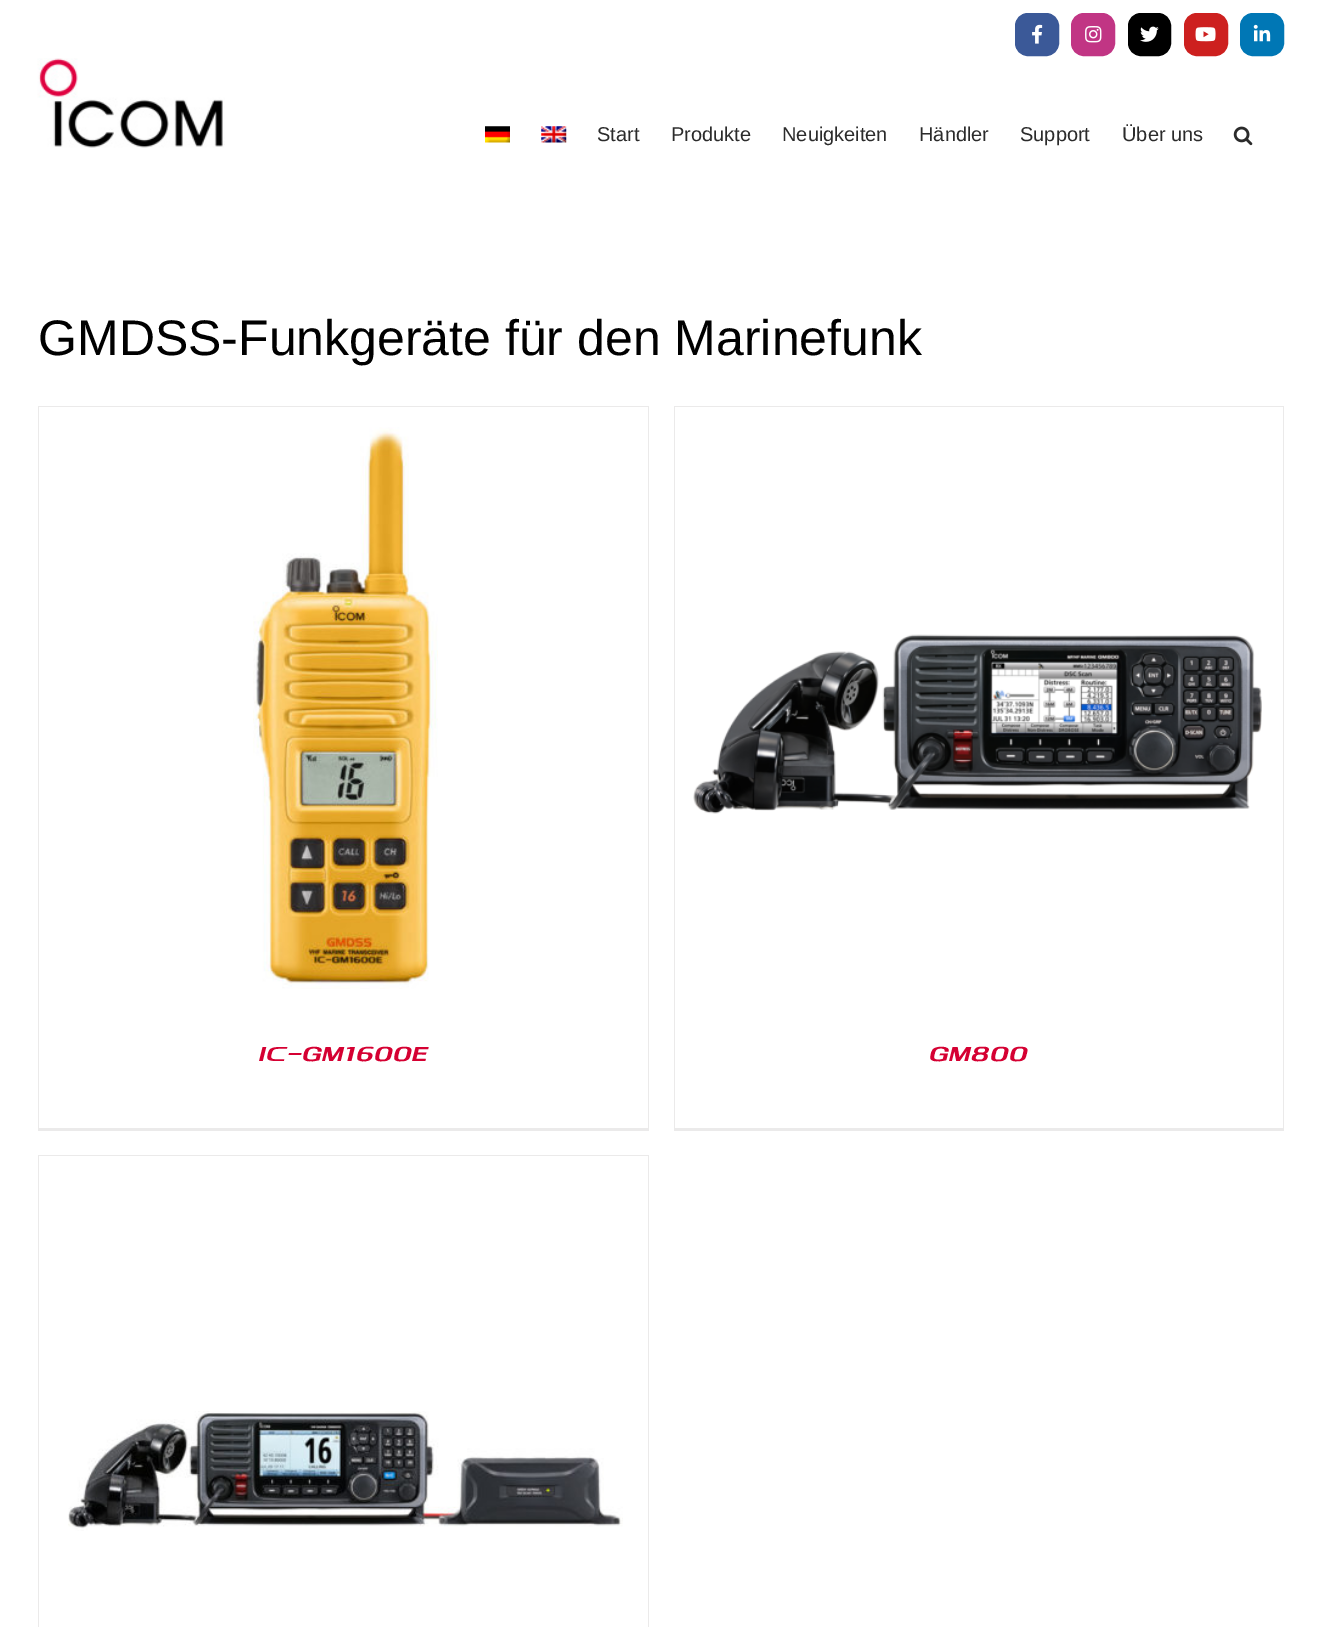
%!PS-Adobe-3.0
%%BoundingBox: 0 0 1321 1627
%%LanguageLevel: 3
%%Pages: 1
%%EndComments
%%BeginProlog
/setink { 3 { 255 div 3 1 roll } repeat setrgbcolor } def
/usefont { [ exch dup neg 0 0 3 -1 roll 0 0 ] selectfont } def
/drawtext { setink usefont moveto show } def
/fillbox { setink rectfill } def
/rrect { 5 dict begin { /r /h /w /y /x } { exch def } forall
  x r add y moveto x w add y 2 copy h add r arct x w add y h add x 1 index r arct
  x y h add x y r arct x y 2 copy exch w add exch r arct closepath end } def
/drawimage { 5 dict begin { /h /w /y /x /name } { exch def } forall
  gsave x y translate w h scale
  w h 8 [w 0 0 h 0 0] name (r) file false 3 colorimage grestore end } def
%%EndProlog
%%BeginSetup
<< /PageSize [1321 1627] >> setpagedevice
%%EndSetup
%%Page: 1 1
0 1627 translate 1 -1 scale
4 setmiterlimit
0 0 1321 1627 255 255 255 fillbox
59 89 152 setink
1015.5 13.5 43 42 12.5 rrect gsave fill grestore
stroke
(assets/img1.rgb) 1032 24 11 20 drawimage
193 53 132 setink
1071.5 13.5 43 42 12.5 rrect gsave fill grestore
stroke
(assets/img2.rgb) 1085 26 17 17 drawimage
0 0 0 setink
1128.5 13.5 42 42 12.5 rrect gsave fill grestore
stroke
(assets/img3.rgb) 1140 26 19 16 drawimage
205 32 31 setink
1184.5 13.5 43 42 12.5 rrect gsave fill grestore
stroke
(assets/img4.rgb) 1195 27 21 15 drawimage
0 119 181 setink
1240.5 13.5 43 42 12.5 rrect gsave fill grestore
stroke
(assets/img5.rgb) 1253 24 18 18 drawimage
(assets/img6.rgb) 37 58 188 90 drawimage
(assets/img7.rgb) 485 126 25 17 drawimage
(assets/img8.rgb) 541 126 26 17 drawimage
(Start) 597 141 /LiberationSans-Regular 20 43 43 43 drawtext
(Produkte) 671 141 /LiberationSans-Regular 20 43 43 43 drawtext
(Neuigkeiten) 782 141 /LiberationSans-Regular 20 43 43 43 drawtext
(Händler) 919 141 /LiberationSans-Regular 20 43 43 43 drawtext
(Support) 1020 141 /LiberationSans-Regular 20 43 43 43 drawtext
(Über uns) 1122 141 /LiberationSans-Regular 20 43 43 43 drawtext
(assets/img9.rgb) 1233 126 20 20 drawimage
(GMDSS-Funkgeräte für den Marinefunk) 38 355 /LiberationSans-Regular 50 0 0 0 drawtext
38 406 611 1 235 234 234 fillbox
648 406 1 724 235 234 234 fillbox
38 1128 611 3 235 234 234 fillbox
38 406 1 724 235 234 234 fillbox
(assets/img10.rgb) 253 427 185 562 drawimage
(IC-GM1600E) 259 1061 /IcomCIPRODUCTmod-MediumItalic 17.5 213 0 50 drawtext
674 406 610 1 235 234 234 fillbox
1283 406 1 724 235 234 234 fillbox
674 1128 610 3 235 234 234 fillbox
674 406 1 724 235 234 234 fillbox
(assets/img11.rgb) 693 634 569 180 drawimage
(GM800) 929 1061 /IcomCIPRODUCTmod-MediumItalic 17.5 213 0 50 drawtext
38 1155 611 1 235 234 234 fillbox
648 1155 1 472 235 234 234 fillbox
38 1155 1 472 235 234 234 fillbox
(assets/img12.rgb) 68 1411 555 120 drawimage
showpage
%%EOF
